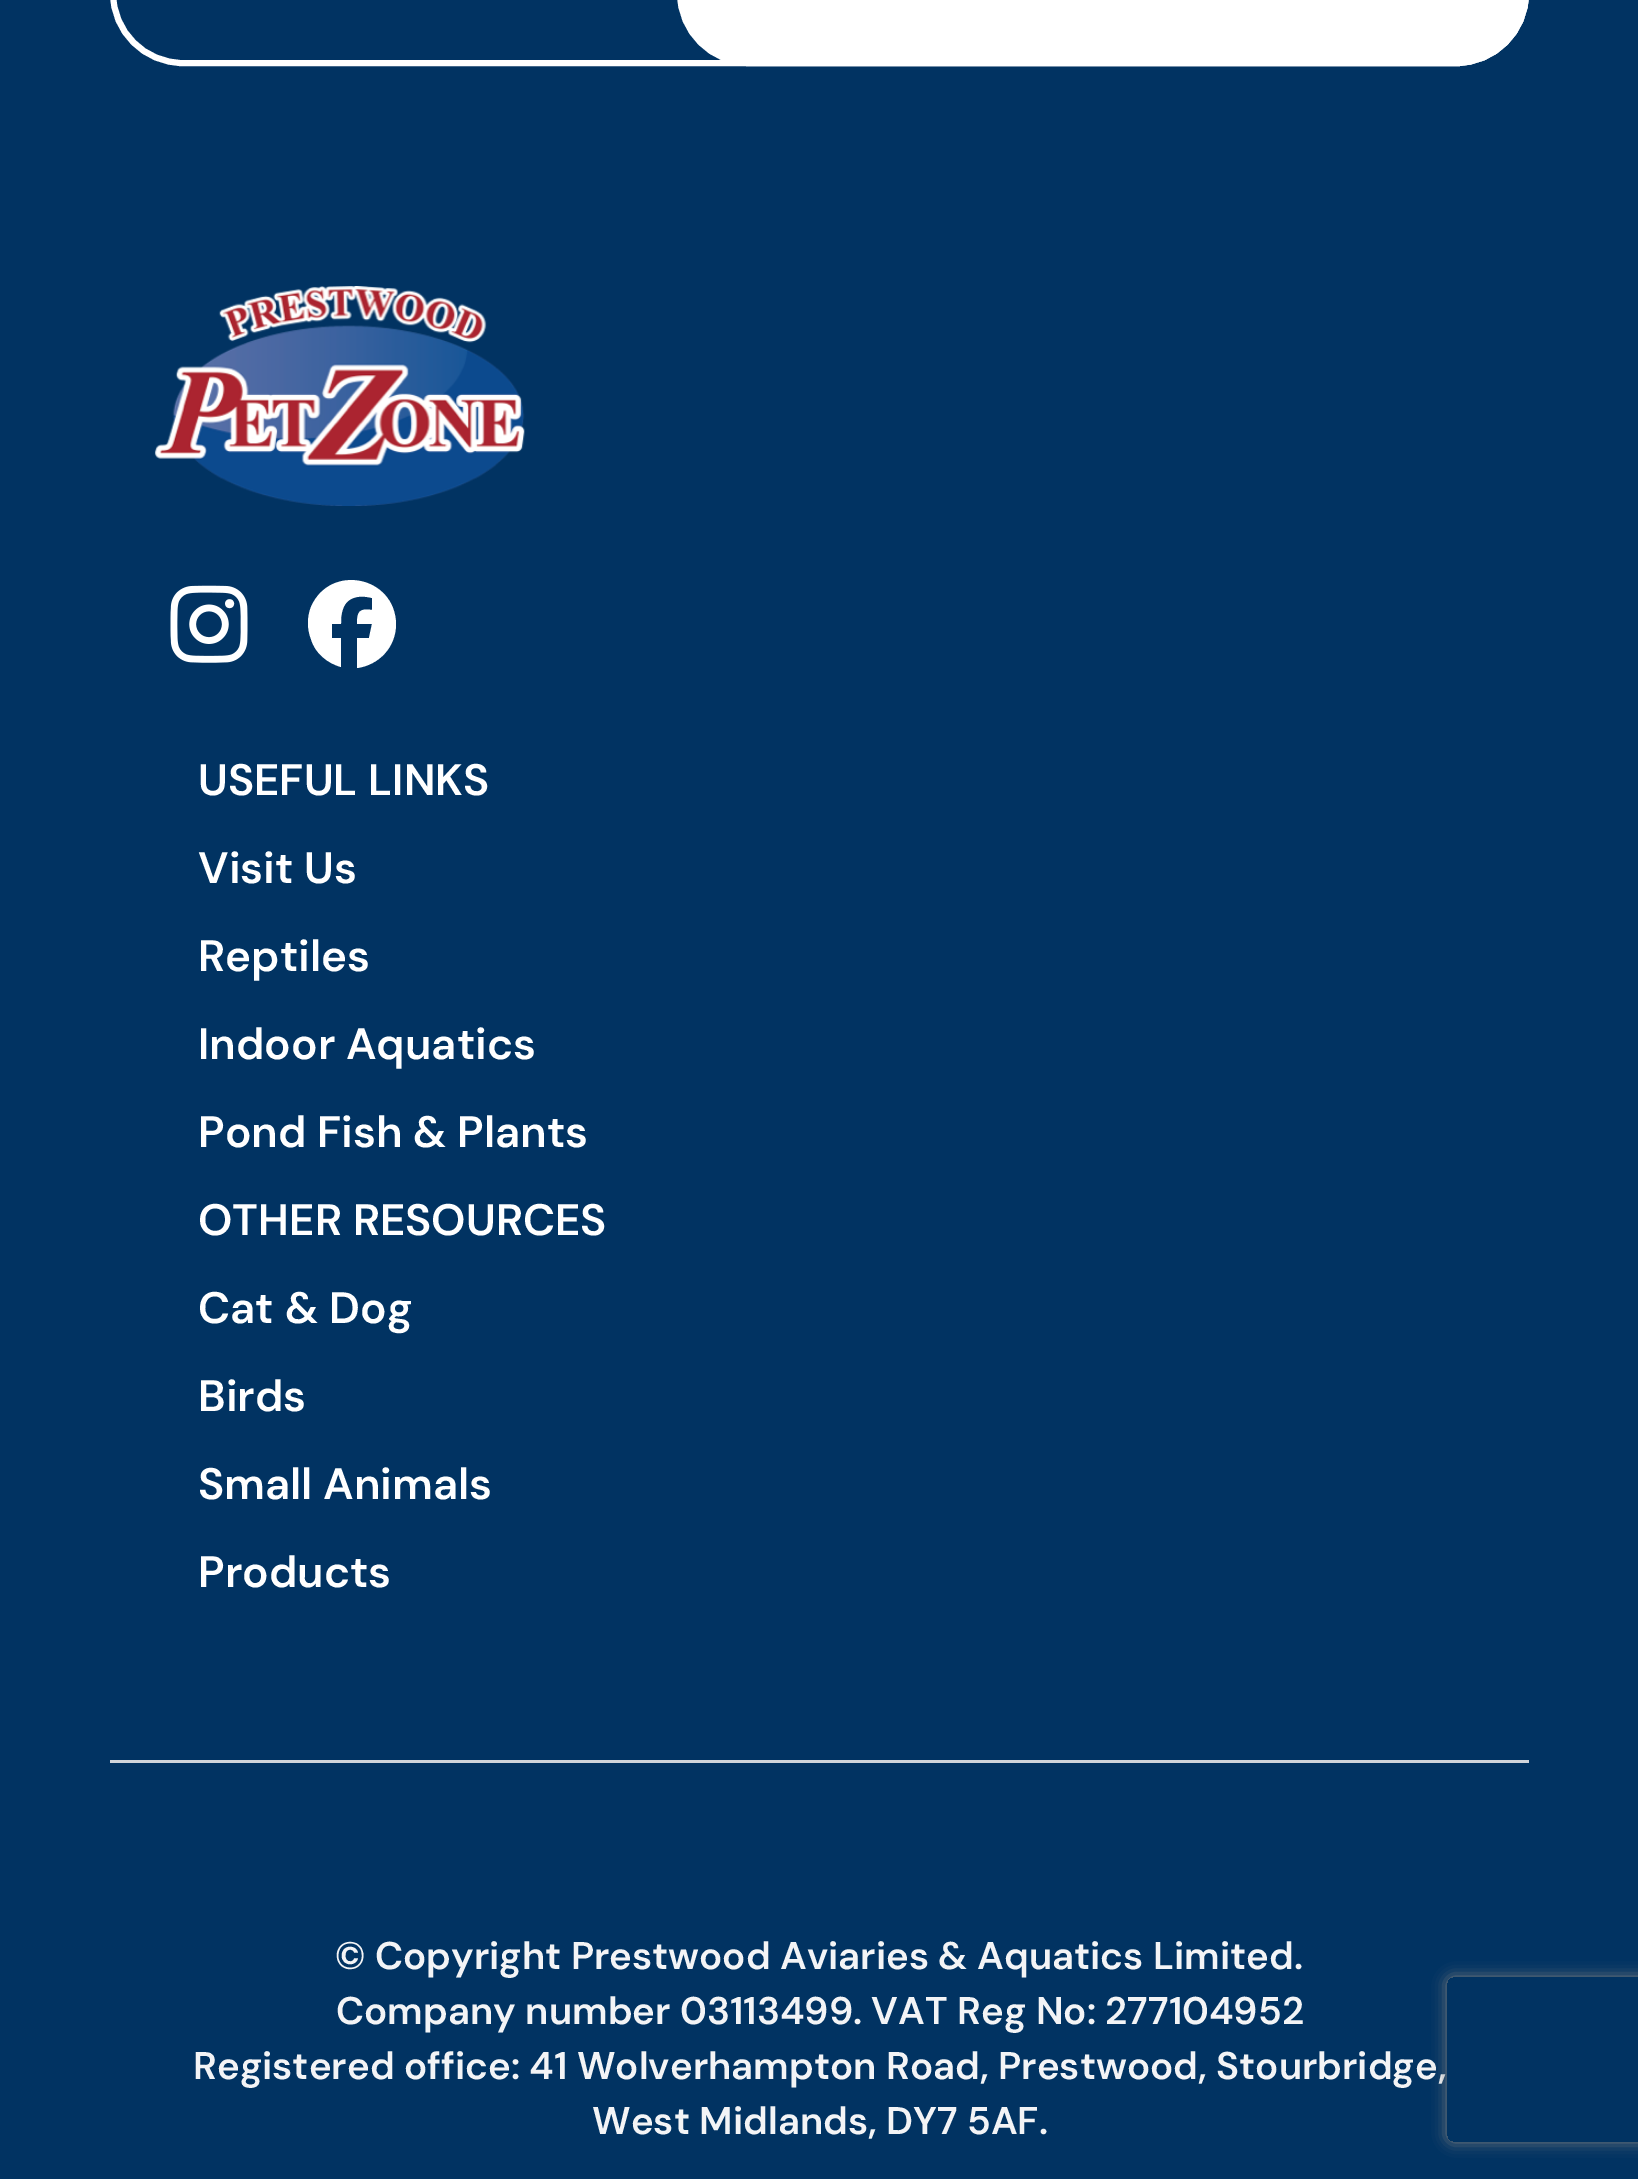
%!PS-Adobe-3.0
%%BoundingBox: 0 0 1638 2179
%%LanguageLevel: 3
%%Pages: 1
%%EndComments
%%BeginProlog
/setink { 3 { 255 div 3 1 roll } repeat setrgbcolor } def
/usefont { [ exch dup neg 0 0 3 -1 roll 0 0 ] selectfont } def
/drawtext { setink usefont moveto show } def
/fillbox { setink rectfill } def
/setalpha { dup .setfillconstantalpha .setstrokeconstantalpha } def
/rrect { 5 dict begin { /r /h /w /y /x } { exch def } forall
  x r add y moveto x w add y 2 copy h add r arct x w add y h add x 1 index r arct
  x y h add x y r arct x y 2 copy exch w add exch r arct closepath end } def
/softshadow { 12 dict begin { /a /b /q /h /w /y /x } { exch def } forall gsave /was 0 def
  9 -2 -9 { dup b mul 4 div /e exch def 1 sub .425 mul 2.718 exch exp 1 add a .99 .min exch div /now exch def
    1 1 now sub 1 was sub div sub setalpha /was now def
    w h .min e 2 mul add 0 gt { x e sub y e sub w e 2 mul add h e 2 mul add
      q e add b .6 mul add w h .min 2 div e add .min 0 .max rrect fill } if } for grestore end } def
/drawimage { 5 dict begin { /h /w /y /x /name } { exch def } forall
  gsave x y translate w h scale
  w h 8 [w 0 0 h 0 0] name (r) file false 3 colorimage grestore end } def
%%EndProlog
%%BeginSetup
<< /PageSize [1638 2179] /PageUsesTransparency true >> setpagedevice
%%EndSetup
%%Page: 1 1
0 .pushpdf14devicefilter
0 2179 translate 1 -1 scale
4 setmiterlimit
0 0 1638 2179 1 51 98 fillbox
255 255 255 setink
6 setlinewidth
113 -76 1413 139 70 rrect stroke
680 -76 846 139 70 rrect gsave fill grestore
stroke
(assets/img1.rgb) 154 286 371 220 drawimage
(assets/img2.rgb) 170 585 78 78 drawimage
396 624 moveto 395 576 330 563 311 607 curveto 307 617 307 629 311 639 curveto 315 653 327 663 341 667 curveto 341 638 lineto 332 638 lineto 332 624 lineto 341 624 lineto 341 619 341 614 343 609 curveto 347 596 361 595 372 598 curveto 372 610 lineto 359 608 357 612 357 624 curveto 372 624 lineto 369 638 lineto 357 638 lineto 357 668 lineto 379 665 396 647 396 624 curveto closepath fill
(USEFUL LINKS) 198 795 /DMSans-SemiBold 44 255 255 255 drawtext
(Visit Us) 198 883 /DMSans-SemiBold 44 255 255 255 drawtext
(Reptiles) 198 971 /DMSans-SemiBold 44 255 255 255 drawtext
(Indoor Aquatics) 198 1059 /DMSans-SemiBold 44 255 255 255 drawtext
(Pond Fish & Plants) 198 1147 /DMSans-SemiBold 44 255 255 255 drawtext
(OTHER RESOURCES) 198 1235 /DMSans-SemiBold 44 255 255 255 drawtext
(Cat & Dog) 198 1323 /DMSans-SemiBold 44 255 255 255 drawtext
(Birds) 198 1411 /DMSans-SemiBold 44 255 255 255 drawtext
(Small Animals) 198 1499 /DMSans-SemiBold 44 255 255 255 drawtext
(Products) 198 1587 /DMSans-SemiBold 44 255 255 255 drawtext
110 1760 1419 3 209 213 219 fillbox
(© Copyright Prestwood Aviaries & Aquatics Limited.) 335 1969 /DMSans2-SemiBold 38.5 243 244 246 drawtext
(Company number 03113499. VAT Reg No: 277104952) 336 2024 /DMSans2-SemiBold 38.5 243 244 246 drawtext
(Registered office: 41 Wolverhampton Road, Prestwood, Stourbridge,) 193 2079 /DMSans2-SemiBold 38.5 243 244 246 drawtext
(West Midlands, DY7 5AF.) 592 2134 /DMSans2-SemiBold 38.5 243 244 246 drawtext
gsave
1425 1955 moveto 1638 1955 lineto 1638 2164 lineto 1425 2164 lineto closepath 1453 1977 moveto 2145 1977 lineto 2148.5 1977 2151 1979.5 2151 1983 curveto 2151 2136 lineto 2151 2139.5 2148.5 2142 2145 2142 curveto 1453 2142 lineto 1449.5 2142 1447 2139.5 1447 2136 curveto 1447 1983 lineto 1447 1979.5 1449.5 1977 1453 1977 curveto closepath eoclip newpath
128 128 128 setink
1447 1977 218 165 6 7 1 softshadow
grestore
.poppdf14devicefilter showpage
%%EOF
